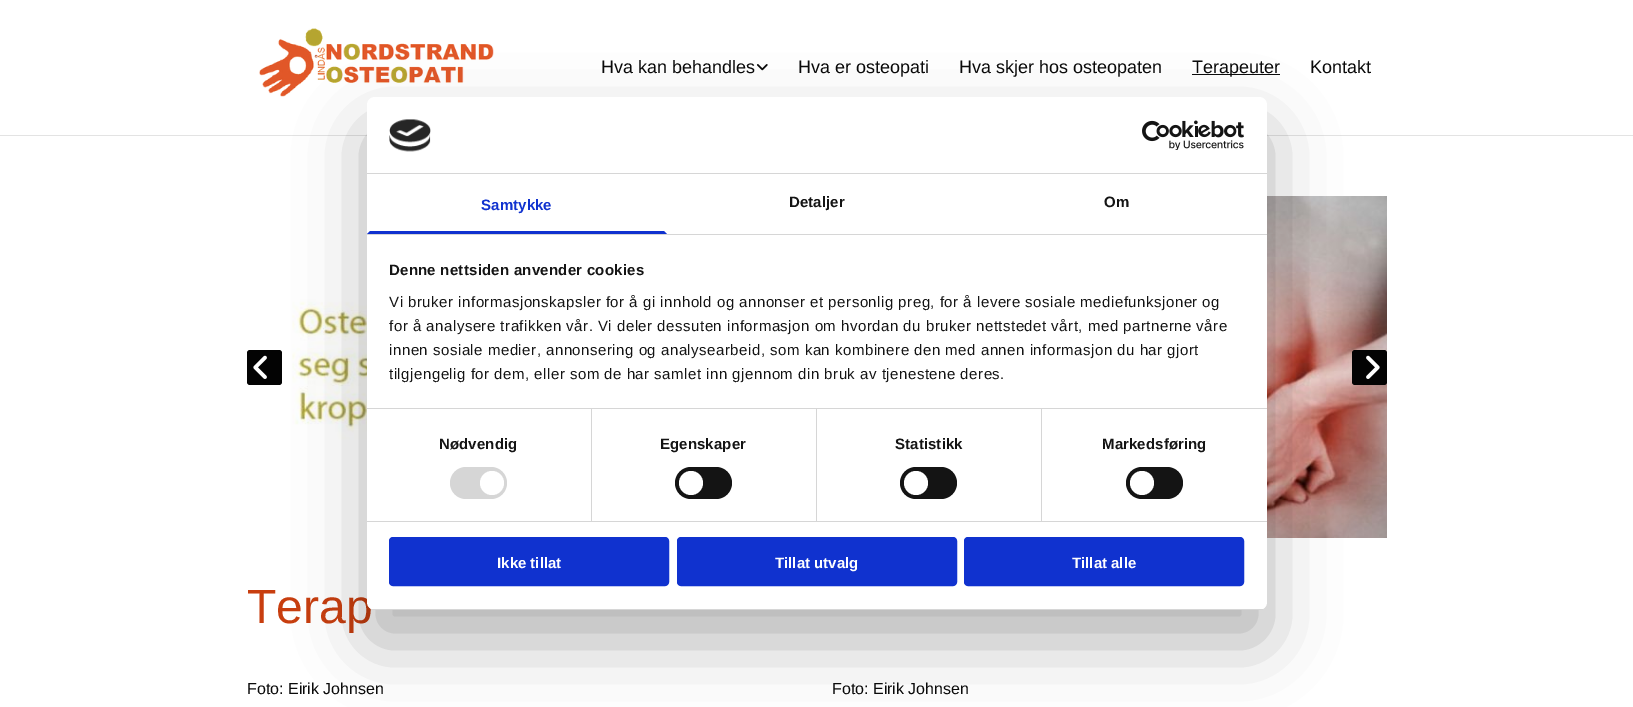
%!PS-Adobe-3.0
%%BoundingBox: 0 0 1633 707
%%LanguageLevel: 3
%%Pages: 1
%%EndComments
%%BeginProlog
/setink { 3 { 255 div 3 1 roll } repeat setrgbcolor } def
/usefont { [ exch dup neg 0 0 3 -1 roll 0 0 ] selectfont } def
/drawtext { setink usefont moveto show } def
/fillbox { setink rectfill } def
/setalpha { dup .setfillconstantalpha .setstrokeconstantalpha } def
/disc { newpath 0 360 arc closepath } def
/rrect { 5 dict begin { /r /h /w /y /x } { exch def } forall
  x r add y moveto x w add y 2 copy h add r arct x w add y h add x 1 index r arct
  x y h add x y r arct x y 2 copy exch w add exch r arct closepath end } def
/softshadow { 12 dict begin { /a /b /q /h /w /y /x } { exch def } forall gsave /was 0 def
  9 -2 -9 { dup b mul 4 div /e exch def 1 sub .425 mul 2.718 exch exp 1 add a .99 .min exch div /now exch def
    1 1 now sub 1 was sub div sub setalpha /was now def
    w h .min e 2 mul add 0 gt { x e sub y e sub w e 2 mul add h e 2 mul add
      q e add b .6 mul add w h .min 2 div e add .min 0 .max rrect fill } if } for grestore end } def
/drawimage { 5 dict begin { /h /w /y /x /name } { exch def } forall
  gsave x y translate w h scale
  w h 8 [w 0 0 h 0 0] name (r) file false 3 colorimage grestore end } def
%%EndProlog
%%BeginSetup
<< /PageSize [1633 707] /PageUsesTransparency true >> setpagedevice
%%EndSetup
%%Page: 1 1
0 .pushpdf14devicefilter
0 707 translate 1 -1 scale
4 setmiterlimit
0 0 1633 707 255 255 255 fillbox
0 135 1633 1 227 227 227 fillbox
(assets/img1.rgb) 259 28 235 69 drawimage
(Hva kan behandles) 601 73 /LiberationSans-Regular 18 10 10 10 drawtext
(assets/img2.rgb) 756 64 12 7 drawimage
(Hva er osteopati) 798 73 /LiberationSans-Regular 18 10 10 10 drawtext
(Hva skjer hos osteopaten) 959 73 /LiberationSans-Regular 18 10 10 10 drawtext
1192 74 88 1 10 10 10 fillbox
(Terapeuter) 1192 73 /LiberationSans-Regular 18 10 10 10 drawtext
(Kontakt) 1310 73 /LiberationSans-Regular 18 10 10 10 drawtext
3 3 3 setink
247 350 35 35 3 rrect fill
(assets/img3.rgb) 253 355 14 24 drawimage
(assets/img4.rgb) 292 196 1095 342 drawimage
1352 350 35 35 3 rrect fill
(assets/img5.rgb) 1366 355 14 24 drawimage
(Terap) 247 623 /LiberationSans-Regular 48 200 62 15 drawtext
(Foto: Eirik Johnsen) 247 694 /LiberationSans-Regular 16 10 10 10 drawtext
(Foto: Eirik Johnsen) 832 694 /LiberationSans-Regular 16 10 10 10 drawtext
0 0 0 setink
367 129 900 513 8 34 0.3 softshadow
255 255 255 setink
367 97 900 513 8 rrect fill
367 173 900 1 214 214 214 fillbox
(assets/img6.rgb) 389 119 42 33 drawimage
(assets/img7.rgb) 1142 120 102 30 drawimage
367 234 900 1 214 214 214 fillbox
16 50 207 setink
667 234 moveto 367 234 lineto 370 231 lineto 664 231 lineto closepath fill
/LiberationSans-Bold 15 usefont
481 210 moveto 0.1 0 (Samtykke) ashow
20 20 20 setink
789 207 moveto 0.1 0 (Detaljer) ashow
1104 207 moveto 0.1 0 (Om) ashow
367 408 900 1 214 214 214 fillbox
20 20 20 setink
389 275 moveto 0.25 0 (Denne nettsiden anvender cookies) ashow
/LiberationSans-Regular 15 usefont
389 307 moveto 0.5 0 (Vi bruker informasjonskapsler for å gi innhold og annonser et personlig preg, for å levere sosiale mediefunksjoner og) ashow
389 331 moveto 0.5 0 (for å analysere trafikken vår. Vi deler dessuten informasjon om hvordan du bruker nettstedet vårt, med partnerne våre) ashow
389 355 moveto 0.5 0 (innen sosiale medier, annonsering og analysearbeid, som kan kombinere den med annen informasjon du har gjort) ashow
389 379 moveto 0.5 0 (tilgjengelig for dem, eller som de har samlet inn gjennom din bruk av tjenestene deres.) ashow
367 521 900 1 214 214 214 fillbox
591 409 1 112 214 214 214 fillbox
/LiberationSans-Bold 15 usefont
20 20 20 setink
439 449 moveto 0.1 0 (Nødvendig) ashow
214 214 214 setink
450 467 57 32 16 rrect fill
255 255 255 setink
492 483 12 disc fill
816 409 1 112 214 214 214 fillbox
20 20 20 setink
660 449 moveto 0.1 0 (Egenskaper) ashow
675 467 57 32 16 rrect fill
255 255 255 setink
691 483 12 disc fill
1041 409 1 112 214 214 214 fillbox
20 20 20 setink
895 449 moveto 0.1 0 (Statistikk) ashow
900 467 57 32 16 rrect fill
255 255 255 setink
916 483 12 disc fill
20 20 20 setink
1102 449 moveto 0.1 0 (Markedsføring) ashow
1126 467 57 32 16 rrect fill
255 255 255 setink
1142 483 12 disc fill
gsave
367 97 900 513 8 rrect clip newpath
367 609 900 1 214 214 214 fillbox
grestore
16 50 207 setink
390 538 278 47 3 rrect gsave fill grestore
2 setlinewidth
stroke
(Ikke tillat) 497 568 /LiberationSans-Bold 15 255 255 255 drawtext
16 50 207 setink
678 538 278 47 3 rrect gsave fill grestore
stroke
(Tillat utvalg) 775 568 /LiberationSans-Bold 15 255 255 255 drawtext
16 50 207 setink
965 538 278 47 3 rrect gsave fill grestore
stroke
(Tillat alle) 1072 568 /LiberationSans-Bold 15 255 255 255 drawtext
.poppdf14devicefilter showpage
%%EOF
